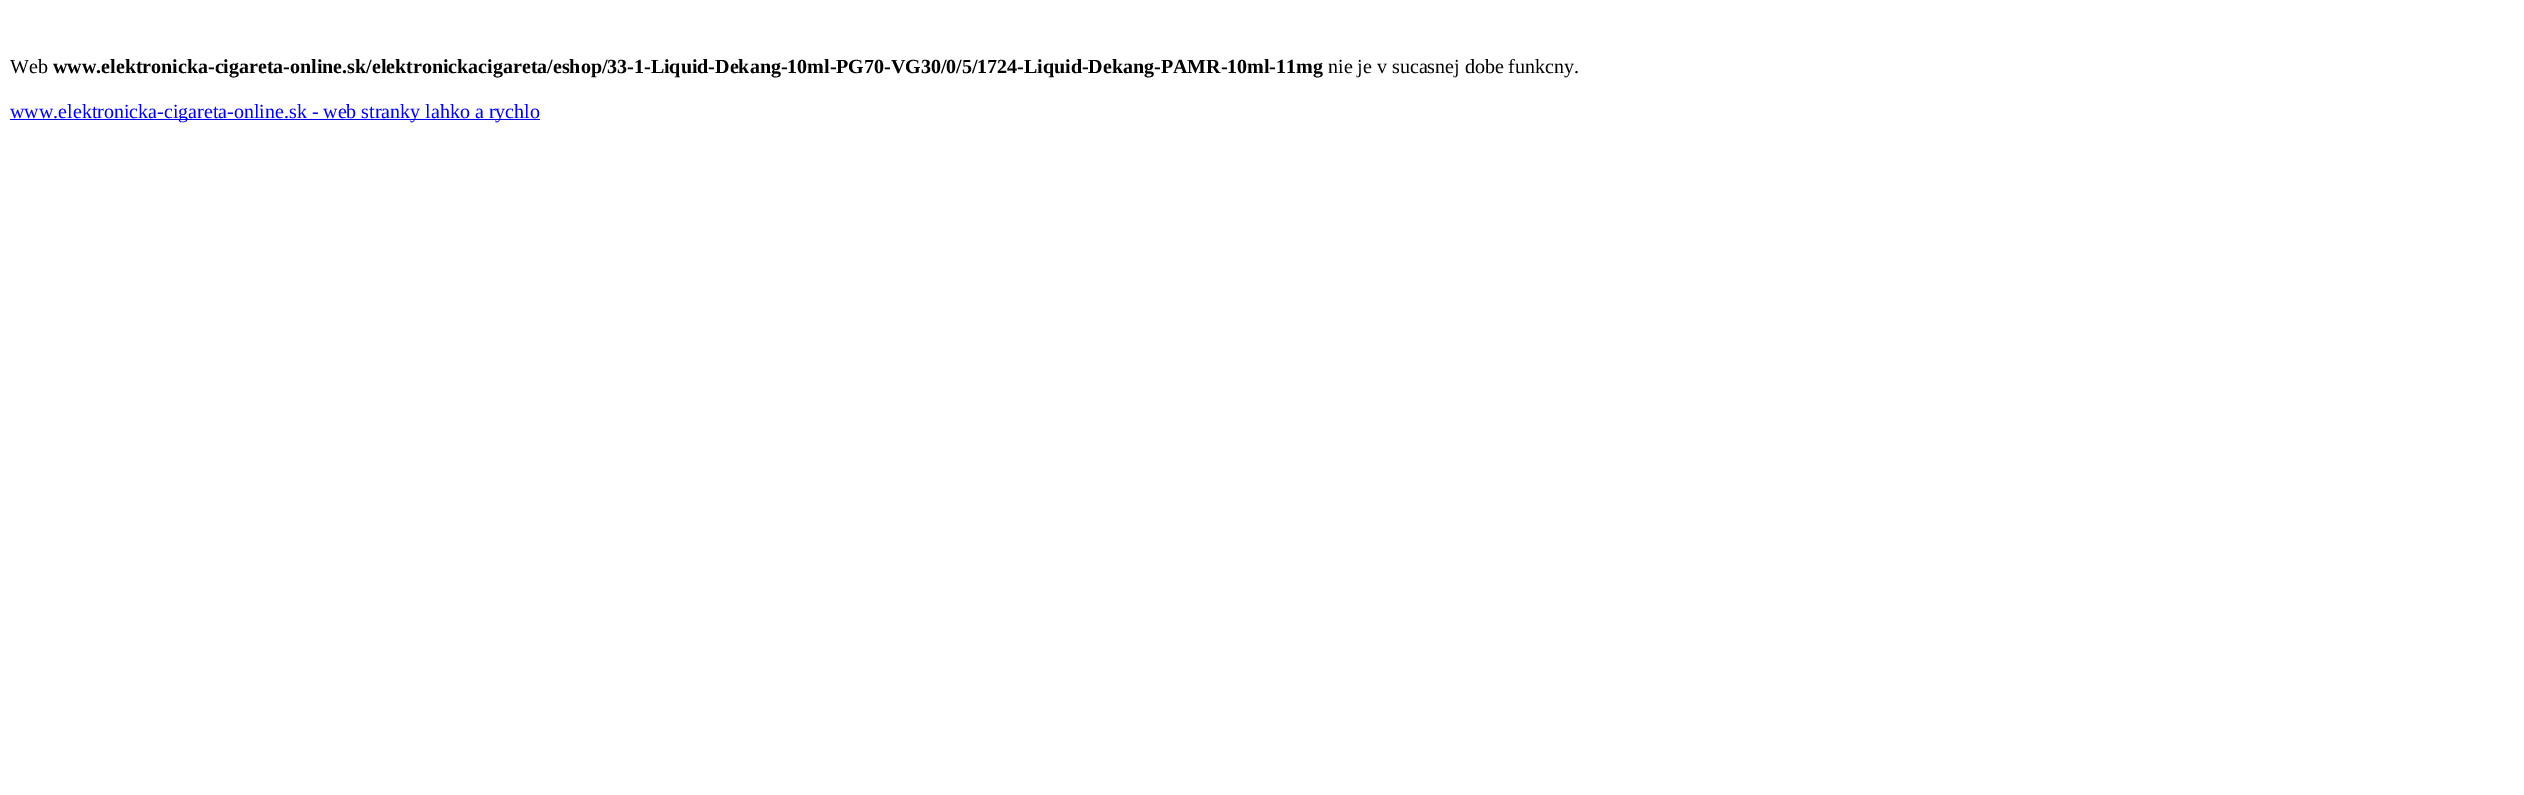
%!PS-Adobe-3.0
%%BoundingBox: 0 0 2524 795
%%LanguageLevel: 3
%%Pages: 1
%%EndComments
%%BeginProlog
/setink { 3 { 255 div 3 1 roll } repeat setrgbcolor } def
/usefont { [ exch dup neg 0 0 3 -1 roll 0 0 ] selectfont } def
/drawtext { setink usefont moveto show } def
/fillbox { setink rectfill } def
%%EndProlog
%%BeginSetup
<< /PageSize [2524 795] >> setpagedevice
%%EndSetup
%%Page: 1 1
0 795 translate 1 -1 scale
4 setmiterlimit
0 0 2524 795 255 255 255 fillbox
(Web) 10 73 /LiberationSerif-Regular 20 0 0 0 drawtext
(www.elektronicka-cigareta-online.sk/elektronickacigareta/eshop/33-1-Liquid-Dekang-10ml-PG70-VG30/0/5/1724-Liquid-Dekang-PAMR-10ml-11mg) 53 73 /LiberationSerif-Bold 20 0 0 0 drawtext
(nie je v sucasnej dobe funkcny.) 1328 73 /LiberationSerif-Regular 20 0 0 0 drawtext
10 119 530 1 0 0 238 fillbox
(www.elektronicka-cigareta-online.sk - web stranky lahko a rychlo) 10 118 /LiberationSerif-Regular 20 0 0 238 drawtext
showpage
%%EOF
